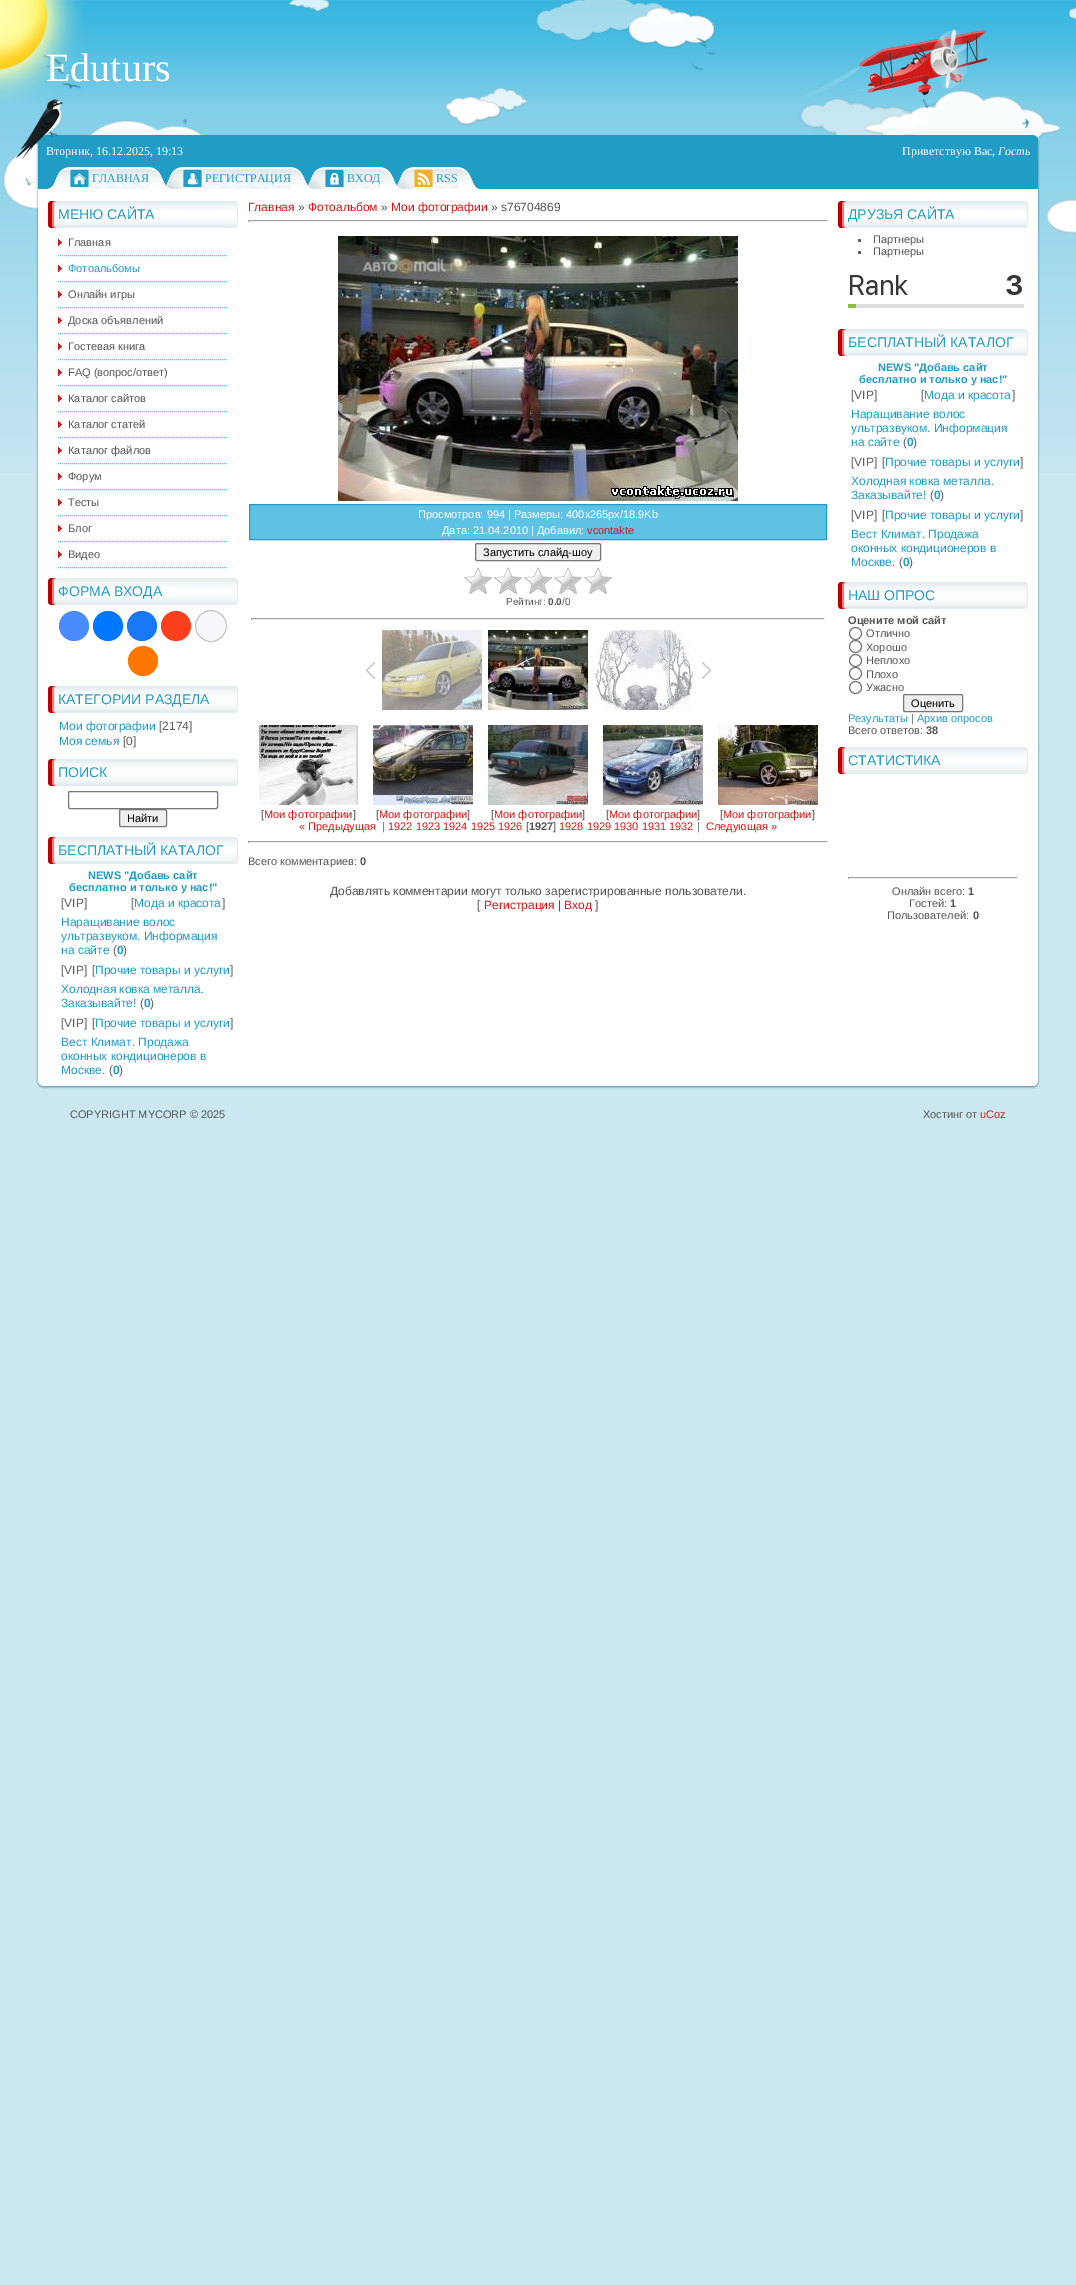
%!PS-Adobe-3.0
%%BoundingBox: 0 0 1076 2285
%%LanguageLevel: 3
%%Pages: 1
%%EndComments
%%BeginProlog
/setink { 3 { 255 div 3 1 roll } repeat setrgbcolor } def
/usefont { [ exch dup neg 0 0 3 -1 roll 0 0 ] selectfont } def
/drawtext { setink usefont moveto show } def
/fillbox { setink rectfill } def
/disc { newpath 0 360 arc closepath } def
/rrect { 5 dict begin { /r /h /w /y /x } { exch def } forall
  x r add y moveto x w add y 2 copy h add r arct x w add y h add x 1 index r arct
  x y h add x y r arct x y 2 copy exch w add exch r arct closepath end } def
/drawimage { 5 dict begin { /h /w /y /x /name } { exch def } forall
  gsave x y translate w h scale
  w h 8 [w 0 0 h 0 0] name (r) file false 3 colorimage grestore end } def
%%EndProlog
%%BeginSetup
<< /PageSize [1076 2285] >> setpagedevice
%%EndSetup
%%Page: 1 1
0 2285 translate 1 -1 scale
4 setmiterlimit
0 0 1076 2285 203 231 241 fillbox
(assets/img1.rgb) 0 0 1076 473 drawimage
(assets/img2.rgb) 0 0 988 104 drawimage
(Eduturs) 46 81 /LiberationSerif-Regular 40 255 255 255 drawtext
(assets/img3.rgb) 36 135 1004 32 drawimage
(Вторник, 16.12.2025, 19:13) 46 155 /LiberationSerif-Regular 12 255 255 255 drawtext
(assets/img4.rgb) 16 99 47 61 drawimage
(Приветствую Вас,) 902 155 /LiberationSerif-Regular 12 255 255 255 drawtext
(Гость) 998 155 /LiberationSerif-Italic 12 255 255 255 drawtext
(assets/img5.rgb) 36 167 1004 23 drawimage
(assets/img6.rgb) 47 167 23 22 drawimage
(assets/img7.rgb) 70 167 79 22 drawimage
(assets/img8.rgb) 70 169 19 18 drawimage
(ГЛАВНАЯ) 92 182 /LiberationSerif-Regular 12 33 156 197 drawtext
(assets/img9.rgb) 149 167 17 22 drawimage
(assets/img10.rgb) 166 167 17 22 drawimage
(assets/img11.rgb) 183 167 108 22 drawimage
(assets/img12.rgb) 183 169 19 18 drawimage
(РЕГИСТРАЦИЯ) 205 182 /LiberationSerif-Regular 12 33 156 197 drawtext
(assets/img9.rgb) 291 167 17 22 drawimage
(assets/img10.rgb) 308 167 17 22 drawimage
(assets/img13.rgb) 325 167 55 22 drawimage
(assets/img14.rgb) 325 169 19 18 drawimage
(ВХОД) 347 182 /LiberationSerif-Regular 12 33 156 197 drawtext
(assets/img9.rgb) 380 167 17 22 drawimage
(assets/img10.rgb) 397 167 17 22 drawimage
(assets/img15.rgb) 414 167 44 22 drawimage
(assets/img16.rgb) 414 169 19 18 drawimage
(RSS) 436 182 /LiberationSerif-Regular 12 33 156 197 drawtext
(assets/img9.rgb) 458 167 17 22 drawimage
(assets/img17.rgb) 475 186 5 3 drawimage
(assets/img18.rgb) 36 190 1004 891 drawimage
(assets/img19.rgb) 48 201 190 27 drawimage
(МЕНЮ САЙТА) 58 219 /LiberationSans-Regular 14 33 156 197 drawtext
94 194 228 setink
[1 1] 0 setdash
58 255.5 moveto 228 255.5 lineto stroke
(assets/img20.rgb) 58 239 4 7 drawimage
(Главная) 68 246 /LiberationSans-Regular 11 85 85 85 drawtext
94 194 228 setink
58 281.5 moveto 228 281.5 lineto stroke
(assets/img20.rgb) 58 265 4 7 drawimage
(Фотоальбомы) 68 272 /LiberationSans-Regular 11 33 156 197 drawtext
94 194 228 setink
58 307.5 moveto 228 307.5 lineto stroke
(assets/img20.rgb) 58 291 4 7 drawimage
(Онлайн игры) 68 298 /LiberationSans-Regular 11 85 85 85 drawtext
94 194 228 setink
58 333.5 moveto 228 333.5 lineto stroke
(assets/img20.rgb) 58 317 4 7 drawimage
(Доска объявлений) 68 324 /LiberationSans-Regular 11 85 85 85 drawtext
94 194 228 setink
58 359.5 moveto 228 359.5 lineto stroke
(assets/img20.rgb) 58 343 4 7 drawimage
(Гостевая книга) 68 350 /LiberationSans-Regular 11 85 85 85 drawtext
94 194 228 setink
58 385.5 moveto 228 385.5 lineto stroke
(assets/img20.rgb) 58 369 4 7 drawimage
(FAQ \(вопрос/ответ\)) 68 376 /LiberationSans-Regular 11 85 85 85 drawtext
94 194 228 setink
58 411.5 moveto 228 411.5 lineto stroke
(assets/img20.rgb) 58 395 4 7 drawimage
(Каталог сайтов) 68 402 /LiberationSans-Regular 11 85 85 85 drawtext
94 194 228 setink
58 437.5 moveto 228 437.5 lineto stroke
(assets/img20.rgb) 58 421 4 7 drawimage
(Каталог статей) 68 428 /LiberationSans-Regular 11 85 85 85 drawtext
94 194 228 setink
58 463.5 moveto 228 463.5 lineto stroke
(assets/img20.rgb) 58 447 4 7 drawimage
(Каталог файлов) 68 454 /LiberationSans-Regular 11 85 85 85 drawtext
94 194 228 setink
58 489.5 moveto 228 489.5 lineto stroke
(assets/img20.rgb) 58 473 4 7 drawimage
(Форум) 68 480 /LiberationSans-Regular 11 85 85 85 drawtext
94 194 228 setink
58 515.5 moveto 228 515.5 lineto stroke
(assets/img20.rgb) 58 499 4 7 drawimage
(Тесты) 68 506 /LiberationSans-Regular 11 85 85 85 drawtext
94 194 228 setink
58 541.5 moveto 228 541.5 lineto stroke
(assets/img20.rgb) 58 525 4 7 drawimage
(Блог) 68 532 /LiberationSans-Regular 11 85 85 85 drawtext
94 194 228 setink
58 567.5 moveto 228 567.5 lineto stroke
(assets/img20.rgb) 58 551 4 7 drawimage
(Видео) 68 558 /LiberationSans-Regular 11 85 85 85 drawtext
(assets/img19.rgb) 48 578 190 27 drawimage
(ФОРМА ВХОДА) 58 596 /LiberationSans-Regular 14 33 156 197 drawtext
73 139 250 setink
74 626 15 disc fill
0 119 255 setink
108 626 15 disc fill
24 119 242 setink
142 626 15 disc fill
252 63 29 setink
176 626 15 disc fill
248 248 252 setink
211 626 15.5 disc gsave fill grestore
196 196 196 setink
[] 0 setdash
stroke
255 119 0 setink
143 661 15 disc fill
(assets/img19.rgb) 48 686 190 27 drawimage
(КАТЕГОРИИ РАЗДЕЛА) 58 704 /LiberationSans-Regular 14 33 156 197 drawtext
(Мои фотографии) 59 730 /LiberationSans-Regular 12 33 156 197 drawtext
([2174]) 159 730 /LiberationSans-Regular 12 93 93 93 drawtext
(Моя семья) 59 745 /LiberationSans-Regular 12 33 156 197 drawtext
([0]) 123 745 /LiberationSans-Regular 12 93 93 93 drawtext
(assets/img19.rgb) 48 759 190 27 drawimage
(ПОИСК) 58 777 /LiberationSans-Regular 14 33 156 197 drawtext
118 118 118 setink
68.5 791.5 149 17 1.5 rrect stroke
239 239 239 setink
119.5 809.5 47 17 1.5 rrect gsave fill grestore
118 118 118 setink
stroke
(Найти) 127 822 /LiberationSans-Regular 11 0 0 0 drawtext
(assets/img19.rgb) 48 837 190 27 drawimage
(БЕСПЛАТНЫЙ КАТАЛОГ) 58 855 /LiberationSans-Regular 14 33 156 197 drawtext
(NEWS "Добавь сайт) 88 879 /LiberationSans-Bold 11 33 156 197 drawtext
(бесплатно и только у нас!") 69 891 /LiberationSans-Bold 11 33 156 197 drawtext
([VIP]) 61 907 /LiberationSans-Regular 12 93 93 93 drawtext
([) 131 907 /LiberationSans-Regular 12 93 93 93 drawtext
(Мода и красота) 134 907 /LiberationSans-Regular 12 33 156 197 drawtext
(]) 222 907 /LiberationSans-Regular 12 93 93 93 drawtext
(Наращивание волос) 61 926 /LiberationSans-Regular 12 33 156 197 drawtext
(ультразвуком. Информация) 61 940 /LiberationSans-Regular 12 33 156 197 drawtext
(на сайте) 61 954 /LiberationSans-Regular 12 33 156 197 drawtext
(\() 113 954 /LiberationSans-Regular 12 93 93 93 drawtext
(0) 117 954 /LiberationSans-Bold 12 33 156 197 drawtext
(\)) 123 954 /LiberationSans-Regular 12 93 93 93 drawtext
([VIP]) 61 974 /LiberationSans-Regular 12 93 93 93 drawtext
([) 92 974 /LiberationSans-Regular 12 93 93 93 drawtext
(Прочие товары и услуги) 95 974 /LiberationSans-Regular 12 33 156 197 drawtext
(]) 230 974 /LiberationSans-Regular 12 93 93 93 drawtext
(Холодная ковка металла.) 61 993 /LiberationSans-Regular 12 33 156 197 drawtext
(Заказывайте!) 61 1007 /LiberationSans-Regular 12 33 156 197 drawtext
(\() 140 1007 /LiberationSans-Regular 12 93 93 93 drawtext
(0) 144 1007 /LiberationSans-Bold 12 33 156 197 drawtext
(\)) 150 1007 /LiberationSans-Regular 12 93 93 93 drawtext
([VIP]) 61 1027 /LiberationSans-Regular 12 93 93 93 drawtext
([) 92 1027 /LiberationSans-Regular 12 93 93 93 drawtext
(Прочие товары и услуги) 95 1027 /LiberationSans-Regular 12 33 156 197 drawtext
(]) 230 1027 /LiberationSans-Regular 12 93 93 93 drawtext
(Вест Климат. Продажа) 61 1046 /LiberationSans-Regular 12 33 156 197 drawtext
(оконных кондиционеров в) 61 1060 /LiberationSans-Regular 12 33 156 197 drawtext
(Москве.) 61 1074 /LiberationSans-Regular 12 33 156 197 drawtext
(\() 109 1074 /LiberationSans-Regular 12 93 93 93 drawtext
(0) 113 1074 /LiberationSans-Bold 12 33 156 197 drawtext
(\)) 119 1074 /LiberationSans-Regular 12 93 93 93 drawtext
(Главная) 248 211 /LiberationSans-Regular 12 210 25 24 drawtext
(») 298 211 /LiberationSans-Regular 12 85 85 85 drawtext
(Фотоальбом) 308 211 /LiberationSans-Regular 12 210 25 24 drawtext
(») 381 211 /LiberationSans-Regular 12 85 85 85 drawtext
(Мои фотографии) 391 211 /LiberationSans-Regular 12 210 25 24 drawtext
(» s76704869) 491 211 /LiberationSans-Regular 12 85 85 85 drawtext
248 220 580 1 159 159 159 fillbox
827 220 1 2 238 238 238 fillbox
248 221 580 1 238 238 238 fillbox
248 220 1 2 159 159 159 fillbox
(assets/img21.rgb) 338 236 400 265 drawimage
94 194 228 setink
249.5 504.5 moveto 826.5 504.5 lineto 826.5 539.5 lineto 249.5 539.5 lineto closepath gsave fill grestore
33 156 197 setink
stroke
(Просмотров: 994 | Размеры: 400x265px/18.9Kb) 418 518 /LiberationSans-Regular 11 255 255 255 drawtext
(Дата: 21.04.2010 | Добавил:) 442 534 /LiberationSans-Regular 11 255 255 255 drawtext
(vcontakte) 587 534 /LiberationSans-Regular 11 210 25 24 drawtext
239 239 239 setink
475.5 543.5 125 17 1.5 rrect gsave fill grestore
118 118 118 setink
stroke
(Запустить слайд-шоу) 483 556 /LiberationSans-Regular 11 0 0 0 drawtext
(assets/img22.rgb) 464 567 148 28 drawimage
(Рейтинг:) 506 605 /LiberationSans-Regular 10 85 85 85 drawtext
(0.0) 548 605 /LiberationSans-Bold 10 85 85 85 drawtext
(/0) 562 605 /LiberationSans-Regular 10 85 85 85 drawtext
251 618 574 1 159 159 159 fillbox
824 618 1 2 238 238 238 fillbox
251 619 574 1 238 238 238 fillbox
251 618 1 2 159 159 159 fillbox
(assets/img23.rgb) 365 662 11 17 drawimage
(assets/img24.rgb) 382 630 100 80 drawimage
(assets/img25.rgb) 488 630 100 80 drawimage
(assets/img26.rgb) 594 630 100 80 drawimage
(assets/img27.rgb) 701 662 11 17 drawimage
(assets/img28.rgb) 259 725 99 80 drawimage
([) 261 818 /LiberationSans-Regular 11 85 85 85 drawtext
(Мои фотографии) 264 818 /LiberationSans-Regular 11 210 25 24 drawtext
(]) 353 818 /LiberationSans-Regular 11 85 85 85 drawtext
(assets/img29.rgb) 373 725 100 80 drawimage
([) 376 818 /LiberationSans-Regular 11 85 85 85 drawtext
(Мои фотографии) 379 818 /LiberationSans-Regular 11 210 25 24 drawtext
(]) 467 818 /LiberationSans-Regular 11 85 85 85 drawtext
(assets/img30.rgb) 488 725 100 80 drawimage
([) 491 818 /LiberationSans-Regular 11 85 85 85 drawtext
(Мои фотографии) 494 818 /LiberationSans-Regular 11 210 25 24 drawtext
(]) 582 818 /LiberationSans-Regular 11 85 85 85 drawtext
(assets/img31.rgb) 603 725 100 80 drawimage
([) 606 818 /LiberationSans-Regular 11 85 85 85 drawtext
(Мои фотографии) 609 818 /LiberationSans-Regular 11 210 25 24 drawtext
(]) 697 818 /LiberationSans-Regular 11 85 85 85 drawtext
(assets/img32.rgb) 718 725 100 80 drawimage
([) 720 818 /LiberationSans-Regular 11 85 85 85 drawtext
(Мои фотографии) 723 818 /LiberationSans-Regular 11 210 25 24 drawtext
(]) 812 818 /LiberationSans-Regular 11 85 85 85 drawtext
(« Предыдущая) 299 830 /LiberationSans-Regular 11 210 25 24 drawtext
(|) 382 830 /LiberationSans-Regular 11 85 85 85 drawtext
(1922 1923 1924 1925 1926) 388 830 /LiberationSans-Regular 11 210 25 24 drawtext
([) 526 830 /LiberationSans-Regular 11 85 85 85 drawtext
(1927) 529 830 /LiberationSans-Bold 11 85 85 85 drawtext
(]) 553 830 /LiberationSans-Regular 11 85 85 85 drawtext
(1928 1929 1930 1931 1932) 559 830 /LiberationSans-Regular 11 210 25 24 drawtext
(|) 697 830 /LiberationSans-Regular 11 85 85 85 drawtext
(Следующая ») 706 830 /LiberationSans-Regular 11 210 25 24 drawtext
248 841 580 1 159 159 159 fillbox
827 841 1 2 238 238 238 fillbox
248 842 580 1 238 238 238 fillbox
248 841 1 2 159 159 159 fillbox
(Всего комментариев:) 248 865 /LiberationSans-Regular 11 85 85 85 drawtext
(0) 360 865 /LiberationSans-Bold 11 85 85 85 drawtext
(Добавлять комментарии могут только зарегистрированные пользователи.) 330 895 /LiberationSans-Regular 12 85 85 85 drawtext
([) 477 909 /LiberationSans-Regular 12 85 85 85 drawtext
(Регистрация) 484 909 /LiberationSans-Regular 12 210 25 24 drawtext
(|) 558 909 /LiberationSans-Regular 12 85 85 85 drawtext
(Вход) 564 909 /LiberationSans-Regular 12 210 25 24 drawtext
(]) 595 909 /LiberationSans-Regular 12 85 85 85 drawtext
(assets/img19.rgb) 838 201 190 27 drawimage
(ДРУЗЬЯ САЙТА) 848 219 /LiberationSans-Regular 14 33 156 197 drawtext
85 85 85 setink
859.5 240.5 1.5 disc fill
(Партнеры) 873 243 /LiberationSans-Regular 11 85 85 85 drawtext
859.5 252.5 1.5 disc fill
(Партнеры) 873 255 /LiberationSans-Regular 11 85 85 85 drawtext
(assets/img33.rgb) 848 275 176 33 drawimage
(assets/img19.rgb) 838 329 190 27 drawimage
(БЕСПЛАТНЫЙ КАТАЛОГ) 848 347 /LiberationSans-Regular 14 33 156 197 drawtext
(NEWS "Добавь сайт) 878 371 /LiberationSans-Bold 11 33 156 197 drawtext
(бесплатно и только у нас!") 859 383 /LiberationSans-Bold 11 33 156 197 drawtext
([VIP]) 851 399 /LiberationSans-Regular 12 93 93 93 drawtext
([) 921 399 /LiberationSans-Regular 12 93 93 93 drawtext
(Мода и красота) 924 399 /LiberationSans-Regular 12 33 156 197 drawtext
(]) 1012 399 /LiberationSans-Regular 12 93 93 93 drawtext
(Наращивание волос) 851 418 /LiberationSans-Regular 12 33 156 197 drawtext
(ультразвуком. Информация) 851 432 /LiberationSans-Regular 12 33 156 197 drawtext
(на сайте) 851 446 /LiberationSans-Regular 12 33 156 197 drawtext
(\() 903 446 /LiberationSans-Regular 12 93 93 93 drawtext
(0) 907 446 /LiberationSans-Bold 12 33 156 197 drawtext
(\)) 913 446 /LiberationSans-Regular 12 93 93 93 drawtext
([VIP]) 851 466 /LiberationSans-Regular 12 93 93 93 drawtext
([) 882 466 /LiberationSans-Regular 12 93 93 93 drawtext
(Прочие товары и услуги) 885 466 /LiberationSans-Regular 12 33 156 197 drawtext
(]) 1020 466 /LiberationSans-Regular 12 93 93 93 drawtext
(Холодная ковка металла.) 851 485 /LiberationSans-Regular 12 33 156 197 drawtext
(Заказывайте!) 851 499 /LiberationSans-Regular 12 33 156 197 drawtext
(\() 930 499 /LiberationSans-Regular 12 93 93 93 drawtext
(0) 934 499 /LiberationSans-Bold 12 33 156 197 drawtext
(\)) 940 499 /LiberationSans-Regular 12 93 93 93 drawtext
([VIP]) 851 519 /LiberationSans-Regular 12 93 93 93 drawtext
([) 882 519 /LiberationSans-Regular 12 93 93 93 drawtext
(Прочие товары и услуги) 885 519 /LiberationSans-Regular 12 33 156 197 drawtext
(]) 1020 519 /LiberationSans-Regular 12 93 93 93 drawtext
(Вест Климат. Продажа) 851 538 /LiberationSans-Regular 12 33 156 197 drawtext
(оконных кондиционеров в) 851 552 /LiberationSans-Regular 12 33 156 197 drawtext
(Москве.) 851 566 /LiberationSans-Regular 12 33 156 197 drawtext
(\() 899 566 /LiberationSans-Regular 12 93 93 93 drawtext
(0) 903 566 /LiberationSans-Bold 12 33 156 197 drawtext
(\)) 909 566 /LiberationSans-Regular 12 93 93 93 drawtext
(assets/img19.rgb) 838 582 190 27 drawimage
(НАШ ОПРОС) 848 600 /LiberationSans-Regular 14 33 156 197 drawtext
(Оцените мой сайт) 848 624 /LiberationSans-Bold 11 85 85 85 drawtext
118 118 118 setink
855.5 633.5 6 disc stroke
(Отлично) 866 637 /LiberationSans-Regular 11 85 85 85 drawtext
118 118 118 setink
855.5 646.5 6 disc stroke
(Хорошо) 866 651 /LiberationSans-Regular 11 85 85 85 drawtext
118 118 118 setink
855.5 660.5 6 disc stroke
(Неплохо) 866 664 /LiberationSans-Regular 11 85 85 85 drawtext
118 118 118 setink
855.5 673.5 6 disc stroke
(Плохо) 866 678 /LiberationSans-Regular 11 85 85 85 drawtext
118 118 118 setink
855.5 687.5 6 disc stroke
(Ужасно) 866 691 /LiberationSans-Regular 11 85 85 85 drawtext
239 239 239 setink
903.5 694.5 59 17 1.5 rrect gsave fill grestore
118 118 118 setink
stroke
(Оценить) 911 707 /LiberationSans-Regular 11 0 0 0 drawtext
(Результаты) 848 722 /LiberationSans-Regular 11 33 156 197 drawtext
(|) 911 722 /LiberationSans-Regular 11 85 85 85 drawtext
(Архив опросов) 917 722 /LiberationSans-Regular 11 33 156 197 drawtext
(Всего ответов:) 848 734 /LiberationSans-Regular 11 85 85 85 drawtext
(38) 926 734 /LiberationSans-Bold 11 85 85 85 drawtext
(assets/img19.rgb) 838 747 190 27 drawimage
(СТАТИСТИКА) 848 765 /LiberationSans-Regular 14 33 156 197 drawtext
848 877 170 1 159 159 159 fillbox
1017 877 1 2 238 238 238 fillbox
848 878 170 1 238 238 238 fillbox
848 877 1 2 159 159 159 fillbox
(Онлайн всего:) 892 895 /LiberationSans-Regular 11 85 85 85 drawtext
(1) 968 895 /LiberationSans-Bold 11 85 85 85 drawtext
(Гостей:) 909 907 /LiberationSans-Regular 11 85 85 85 drawtext
(1) 950 907 /LiberationSans-Bold 11 85 85 85 drawtext
(Пользователей:) 887 919 /LiberationSans-Regular 11 85 85 85 drawtext
(0) 973 919 /LiberationSans-Bold 11 85 85 85 drawtext
(assets/img34.rgb) 36 1081 1004 8 drawimage
(COPYRIGHT MYCORP © 2025) 70 1118 /LiberationSans-Regular 11 85 85 85 drawtext
(Хостинг от) 923 1118 /LiberationSans-Regular 11 85 85 85 drawtext
(uCoz) 980 1118 /LiberationSans-Regular 11 210 25 24 drawtext
showpage
%%EOF
